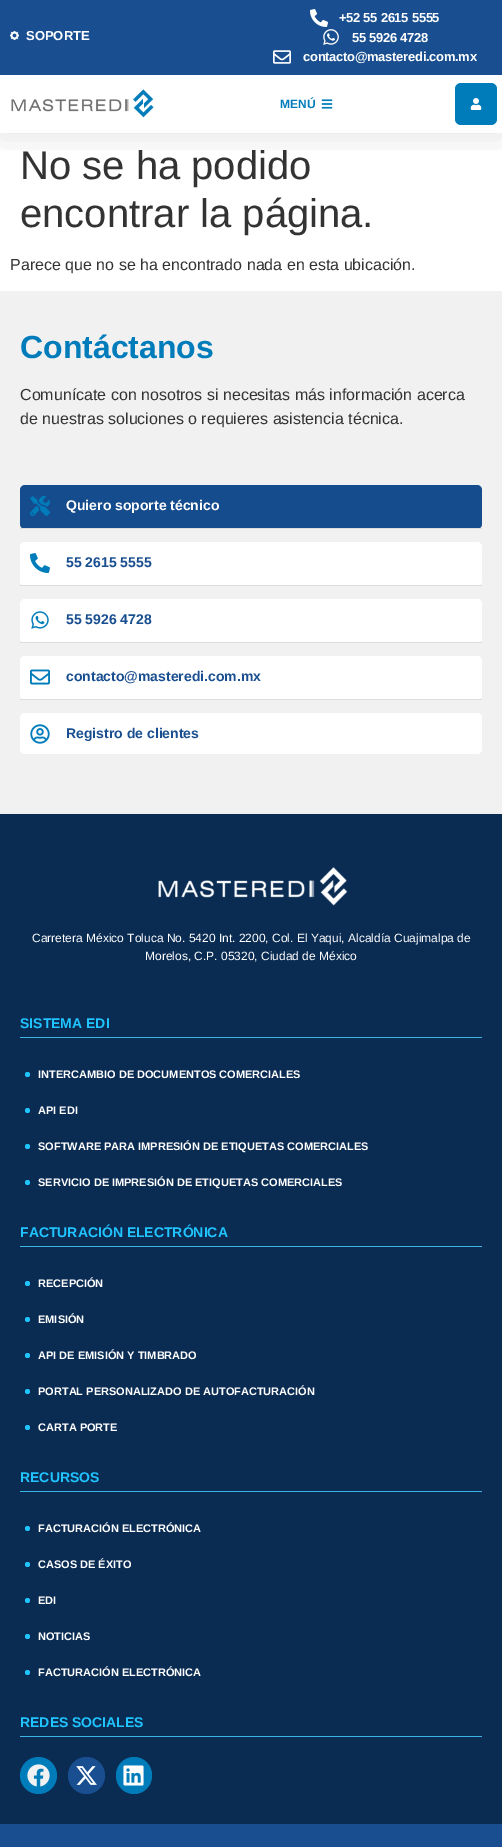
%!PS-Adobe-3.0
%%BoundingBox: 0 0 502 1847
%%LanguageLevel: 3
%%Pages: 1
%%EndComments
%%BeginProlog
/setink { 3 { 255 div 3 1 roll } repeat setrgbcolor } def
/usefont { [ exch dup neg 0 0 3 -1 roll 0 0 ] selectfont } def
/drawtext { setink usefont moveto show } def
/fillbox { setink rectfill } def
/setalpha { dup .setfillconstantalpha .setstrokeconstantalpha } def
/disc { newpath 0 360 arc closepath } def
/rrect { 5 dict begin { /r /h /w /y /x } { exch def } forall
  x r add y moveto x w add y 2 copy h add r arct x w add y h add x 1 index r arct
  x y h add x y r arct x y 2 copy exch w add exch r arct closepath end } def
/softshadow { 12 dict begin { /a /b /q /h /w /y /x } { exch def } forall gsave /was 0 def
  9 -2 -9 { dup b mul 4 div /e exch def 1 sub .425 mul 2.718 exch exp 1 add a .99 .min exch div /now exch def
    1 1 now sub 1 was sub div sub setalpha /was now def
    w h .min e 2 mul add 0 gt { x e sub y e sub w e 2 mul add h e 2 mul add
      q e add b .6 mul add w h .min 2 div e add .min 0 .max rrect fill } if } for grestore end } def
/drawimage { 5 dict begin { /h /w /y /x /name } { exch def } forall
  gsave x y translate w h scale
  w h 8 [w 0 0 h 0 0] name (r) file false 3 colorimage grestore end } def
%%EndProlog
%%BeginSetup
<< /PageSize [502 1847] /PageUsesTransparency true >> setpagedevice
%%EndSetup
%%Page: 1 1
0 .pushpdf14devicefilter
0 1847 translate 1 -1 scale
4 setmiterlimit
0 0 502 1847 255 255 255 fillbox
gsave
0 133 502 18 rectclip
0 0 0 setink
0 5 502 133 0 15 0.1 softshadow
grestore
0 0 502 75 25 79 144 fillbox
(assets/img1.rgb) 10 31 9 9 drawimage
(SOPORTE) 26 40 /LiberationSans-Bold 13 255 255 255 drawtext
(assets/img2.rgb) 310 9 18 18 drawimage
339 22 moveto -0.3 0 (+52 55 2615 5555) ashow
(assets/img3.rgb) 323 29 16 16 drawimage
352 42 moveto -0.3 0 (55 5926 4728) ashow
(assets/img4.rgb) 273 50 18 14 drawimage
303 61 moveto -0.3 0 (contacto@masteredi.com.mx) ashow
(assets/img5.rgb) 11 89 143 29 drawimage
(MENÚ) 280 108 /LiberationSans-Bold 12 0 124 187 drawtext
(assets/img6.rgb) 321 99 12 10 drawimage
455 83 42 42 6 rrect fill
(assets/img7.rgb) 470 98 12 12 drawimage
(No se ha podido) 20 179 /LiberationSans-Regular 40 51 51 51 drawtext
(encontrar la página.) 20 227 /LiberationSans-Regular 40 51 51 51 drawtext
(Parece que no se ha encontrado nada en esta ubicación.) 10 270 /LiberationSans-Regular 16 51 51 51 drawtext
0 291 502 523 241 241 241 fillbox
(Contáctanos) 20 358 /LiberationSans-Bold 32 0 124 187 drawtext
(Comunícate con nosotros si necesitas más información acerca) 20 400 /LiberationSans-Regular 16 51 51 51 drawtext
(de nuestras soluciones o requieres asistencia técnica.) 20 424 /LiberationSans-Regular 16 51 51 51 drawtext
21 76 141 setink
20 485 462 44 5 rrect fill
(assets/img8.rgb) 30 496 20 20 drawimage
(Quiero soporte técnico) 66 510 /LiberationSans-Bold 14 255 255 255 drawtext
20 528 462 1 221 221 221 fillbox
255 255 255 setink
20 542 462 44 5 rrect fill
(assets/img9.rgb) 30 553 20 20 drawimage
(55 2615 5555) 66 567 /LiberationSans-Bold 14 25 79 144 drawtext
20 585 462 1 221 221 221 fillbox
255 255 255 setink
20 599 462 44 5 rrect fill
(assets/img10.rgb) 31 611 18 18 drawimage
(55 5926 4728) 66 624 /LiberationSans-Bold 14 25 79 144 drawtext
20 642 462 1 221 221 221 fillbox
255 255 255 setink
20 656 462 44 5 rrect fill
(assets/img11.rgb) 30 669 20 16 drawimage
(contacto@masteredi.com.mx) 66 681 /LiberationSans-Bold 14 25 79 144 drawtext
20 699 462 1 221 221 221 fillbox
255 255 255 setink
20 713 462 41 5 rrect fill
(assets/img12.rgb) 30 724 20 20 drawimage
(Registro de clientes) 66 738 /LiberationSans-Bold 14 25 79 144 drawtext
0 814 502 1010 10 44 83 fillbox
(assets/img13.rgb) 158 867 190 39 drawimage
(Carretera México Toluca No. 5420 Int. 2200, Col. El Yaqui, Alcaldía Cuajimalpa de) 32 942 /LiberationSans-Regular 12 255 255 255 drawtext
(Morelos, C.P. 05320, Ciudad de México) 145 960 /LiberationSans-Regular 12 255 255 255 drawtext
20 1037 462 1 60 180 229 fillbox
(SISTEMA EDI) 20 1028 /LiberationSans-Bold 14 32 196 255 drawtext
27.5 1074.5 2.5 disc fill
(INTERCAMBIO DE DOCUMENTOS COMERCIALES) 38 1078 /LiberationSans-Bold 11 255 255 255 drawtext
32 196 255 setink
27.5 1110.5 2.5 disc fill
(API EDI) 38 1114 /LiberationSans-Bold 11 255 255 255 drawtext
32 196 255 setink
27.5 1146.5 2.5 disc fill
(SOFTWARE PARA IMPRESIÓN DE ETIQUETAS COMERCIALES) 38 1150 /LiberationSans-Bold 11 255 255 255 drawtext
32 196 255 setink
27.5 1182.5 2.5 disc fill
(SERVICIO DE IMPRESIÓN DE ETIQUETAS COMERCIALES) 38 1186 /LiberationSans-Bold 11 255 255 255 drawtext
20 1246 462 1 60 180 229 fillbox
(FACTURACIÓN ELECTRÓNICA) 20 1237 /LiberationSans-Bold 14 32 196 255 drawtext
27.5 1283.5 2.5 disc fill
(RECEPCIÓN) 38 1287 /LiberationSans-Bold 11 255 255 255 drawtext
32 196 255 setink
27.5 1319.5 2.5 disc fill
(EMISIÓN) 38 1323 /LiberationSans-Bold 11 255 255 255 drawtext
32 196 255 setink
27.5 1355.5 2.5 disc fill
(API DE EMISIÓN Y TIMBRADO) 38 1359 /LiberationSans-Bold 11 255 255 255 drawtext
32 196 255 setink
27.5 1391.5 2.5 disc fill
(PORTAL PERSONALIZADO DE AUTOFACTURACIÓN) 38 1395 /LiberationSans-Bold 11 255 255 255 drawtext
32 196 255 setink
27.5 1427.5 2.5 disc fill
(CARTA PORTE) 38 1431 /LiberationSans-Bold 11 255 255 255 drawtext
20 1491 462 1 60 180 229 fillbox
(RECURSOS) 20 1482 /LiberationSans-Bold 14 32 196 255 drawtext
27.5 1528.5 2.5 disc fill
(FACTURACIÓN ELECTRÓNICA) 38 1532 /LiberationSans-Bold 11 255 255 255 drawtext
32 196 255 setink
27.5 1564.5 2.5 disc fill
(CASOS DE ÉXITO) 38 1568 /LiberationSans-Bold 11 255 255 255 drawtext
32 196 255 setink
27.5 1600.5 2.5 disc fill
(EDI) 38 1604 /LiberationSans-Bold 11 255 255 255 drawtext
32 196 255 setink
27.5 1636.5 2.5 disc fill
(NOTICIAS) 38 1640 /LiberationSans-Bold 11 255 255 255 drawtext
32 196 255 setink
27.5 1672.5 2.5 disc fill
(FACTURACIÓN ELECTRÓNICA) 38 1676 /LiberationSans-Bold 11 255 255 255 drawtext
20 1736 462 1 60 180 229 fillbox
(REDES SOCIALES) 20 1727 /LiberationSans-Bold 14 32 196 255 drawtext
0 124 187 setink
38.5 1775.5 18.5 disc fill
(assets/img14.rgb) 27 1764 23 23 drawimage
25 79 144 setink
86.5 1775.5 18.5 disc fill
(assets/img15.rgb) 76 1766 21 19 drawimage
0 124 187 setink
116 1757 36 37 18 rrect fill
(assets/img16.rgb) 123 1765 21 21 drawimage
0 1824 502 23 25 79 144 fillbox
.poppdf14devicefilter showpage
%%EOF
